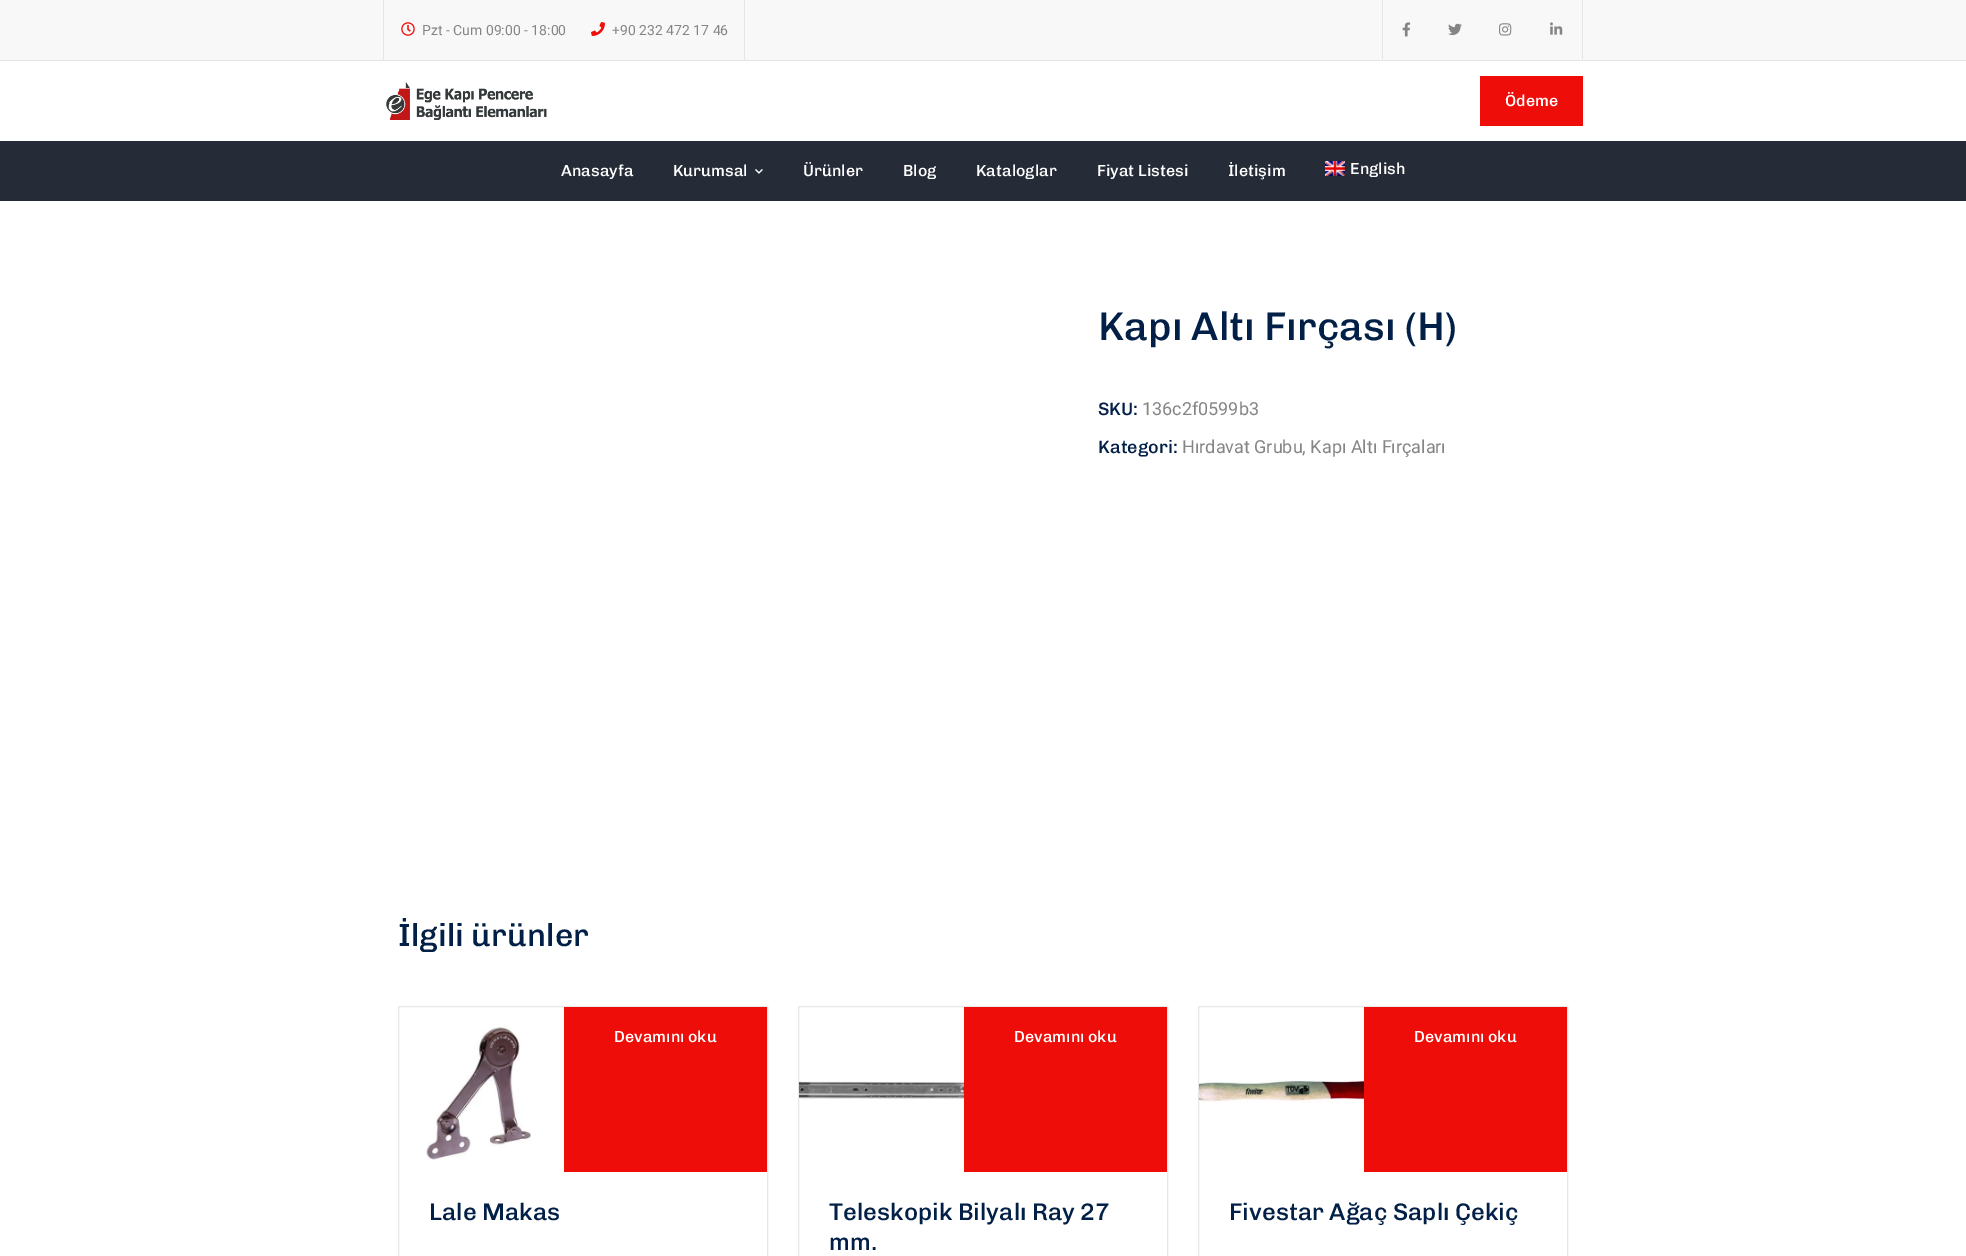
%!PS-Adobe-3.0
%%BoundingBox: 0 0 1966 1256
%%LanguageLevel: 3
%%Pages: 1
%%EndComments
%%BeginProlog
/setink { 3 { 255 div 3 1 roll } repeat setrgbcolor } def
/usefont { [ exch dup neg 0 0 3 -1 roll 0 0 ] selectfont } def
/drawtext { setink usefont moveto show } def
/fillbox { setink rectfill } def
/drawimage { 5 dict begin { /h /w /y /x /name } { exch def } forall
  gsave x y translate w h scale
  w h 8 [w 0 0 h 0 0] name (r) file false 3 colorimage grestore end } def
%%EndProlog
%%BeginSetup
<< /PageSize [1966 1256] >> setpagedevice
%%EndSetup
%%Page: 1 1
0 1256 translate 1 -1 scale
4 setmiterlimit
0 0 1966 1256 255 255 255 fillbox
0 0 1966 60 248 248 249 fillbox
0 60 1966 1 230 227 233 fillbox
383 0 1 60 230 227 233 fillbox
(assets/img1.rgb) 401 22 14 14 drawimage
(Pzt - Cum 09:00 - 18:00) 422 35 /Roboto-Regular 14 133 133 133 drawtext
744 0 1 60 230 227 233 fillbox
(assets/img2.rgb) 591 22 14 14 drawimage
(+90 232 472 17 46) 612 35 /Roboto-Regular 14 133 133 133 drawtext
1582 0 1 59 230 227 233 fillbox
1382 0 1 59 230 227 233 fillbox
(assets/img3.rgb) 1402 22 9 15 drawimage
(assets/img4.rgb) 1448 23 14 13 drawimage
(assets/img5.rgb) 1499 23 13 13 drawimage
(assets/img6.rgb) 1550 22 13 13 drawimage
(assets/img7.rgb) 386 82 161 38 drawimage
1480 76 103 50 238 13 8 fillbox
(Ödeme) 1505 106 /Chivo-Medium 16 255 255 255 drawtext
0 141 1966 60 38 43 56 fillbox
(Anasayfa) 561 176 /Chivo-Medium 16 255 255 255 drawtext
(Kurumsal) 673 176 /Chivo-Medium 16 255 255 255 drawtext
(assets/img8.rgb) 755 169 8 5 drawimage
(Ürünler) 803 176 /Chivo-Medium 16 255 255 255 drawtext
(Blog) 903 176 /Chivo-Medium 16 255 255 255 drawtext
(Kataloglar) 976 176 /Chivo-Medium 16 255 255 255 drawtext
(Fiyat Listesi) 1097 176 /Chivo-Medium 16 255 255 255 drawtext
(İletişim) 1228 176 /Chivo-Medium 16 255 255 255 drawtext
(assets/img9.rgb) 1325 161 20 15 drawimage
(English) 1350 174 /Chivo-Medium 16 255 255 255 drawtext
(Kapı Altı Fırçası \(H\)) 1098 340 /Chivo-Medium 40 2 32 71 drawtext
(SKU:) 1098 415 /Chivo-Medium 18 2 32 71 drawtext
(136c2f0599b3) 1142 415 /Roboto-Regular 18 133 133 133 drawtext
(Kategori:) 1098 453 /Chivo-Medium 18 2 32 71 drawtext
(Hırdavat Grubu, Kapı Altı Fırçaları) 1182 453 /Roboto-Regular 18 133 133 133 drawtext
(İlgili ürünler) 398 946 /Chivo-Medium 32 2 32 71 drawtext
231 231 231 setink
398.5 1006.5 369 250 rectstroke
(assets/img10.rgb) 426 1027 105 133 drawimage
564 1007 203 165 238 13 8 fillbox
(Devamını oku) 614 1042 /Chivo-Medium 16 255 255 255 drawtext
(Lale Makas) 429 1220 /Chivo-Medium 24 2 32 71 drawtext
231 231 231 setink
798.5 1006.5 369 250 rectstroke
964 1007 203 165 238 13 8 fillbox
(Devamını oku) 1014 1042 /Chivo-Medium 16 255 255 255 drawtext
(assets/img11.rgb) 799 1081 165 19 drawimage
(Teleskopik Bilyalı Ray 27) 829 1220 /Chivo-Medium 24 2 32 71 drawtext
(mm.) 829 1250 /Chivo-Medium 24 2 32 71 drawtext
231 231 231 setink
1198.5 1006.5 369 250 rectstroke
1364 1007 203 165 238 13 8 fillbox
(Devamını oku) 1414 1042 /Chivo-Medium 16 255 255 255 drawtext
(assets/img12.rgb) 1199 1079 165 24 drawimage
(Fivestar Ağaç Saplı Çekiç) 1229 1220 /Chivo-Medium 24 2 32 71 drawtext
showpage
%%EOF
